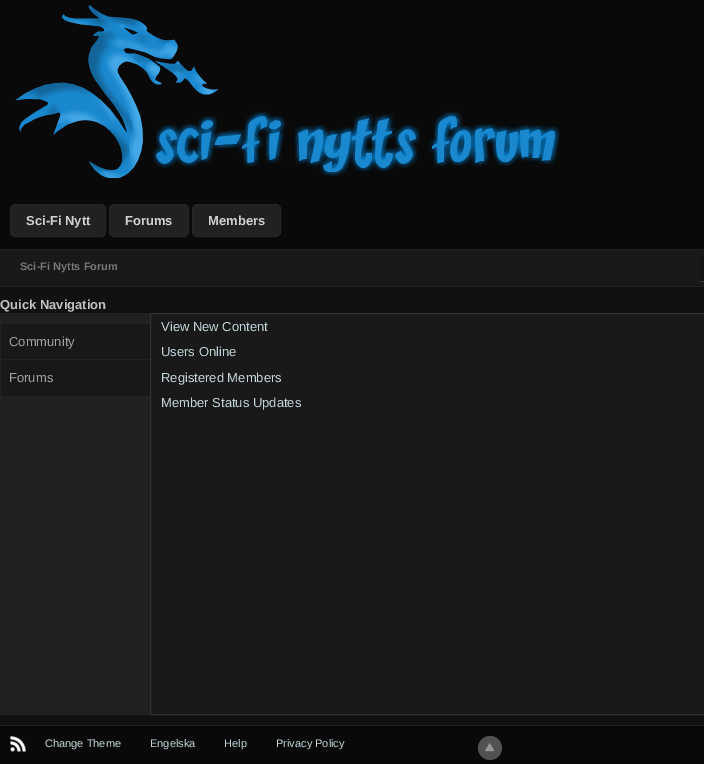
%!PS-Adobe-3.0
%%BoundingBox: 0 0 704 764
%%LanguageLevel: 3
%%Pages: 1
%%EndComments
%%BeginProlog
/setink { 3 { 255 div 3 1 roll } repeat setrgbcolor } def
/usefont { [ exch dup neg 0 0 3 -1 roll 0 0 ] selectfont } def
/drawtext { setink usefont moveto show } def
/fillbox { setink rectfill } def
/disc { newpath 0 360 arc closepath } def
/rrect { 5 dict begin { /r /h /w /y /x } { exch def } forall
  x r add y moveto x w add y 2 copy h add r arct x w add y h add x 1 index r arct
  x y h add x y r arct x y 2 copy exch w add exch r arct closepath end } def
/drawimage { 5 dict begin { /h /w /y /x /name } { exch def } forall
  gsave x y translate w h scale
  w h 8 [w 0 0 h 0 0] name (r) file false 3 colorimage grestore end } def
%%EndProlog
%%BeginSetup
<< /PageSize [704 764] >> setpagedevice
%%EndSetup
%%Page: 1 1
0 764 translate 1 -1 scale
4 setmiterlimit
0 0 704 764 9 9 9 fillbox
(assets/img1.rgb) 15 5 545 173 drawimage
33 33 33 setink
10.5 204.5 95 32 4.5 rrect gsave fill grestore
37 37 37 setink
stroke
(Sci-Fi Nytt) 26 225 /LiberationSans-Bold 13 209 209 209 drawtext
33 33 33 setink
109.5 204.5 79 32 4.5 rrect gsave fill grestore
37 37 37 setink
stroke
(Forums) 125 225 /LiberationSans-Bold 13 209 209 209 drawtext
33 33 33 setink
192.5 204.5 88 32 4.5 rrect gsave fill grestore
37 37 37 setink
stroke
(Members) 208 225 /LiberationSans-Bold 13 209 209 209 drawtext
0 250 704 36 25 25 25 fillbox
0 249 704 1 33 33 33 fillbox
0 286 704 1 33 33 33 fillbox
(Sci-Fi Nytts Forum) 20 270 /LiberationSans-Bold 11 119 119 119 drawtext
700 281 4 1 60 60 60 fillbox
700 255 4 26 20 20 20 fillbox
0 287 704 438 17 17 17 fillbox
0 725 704 1 33 33 33 fillbox
(Quick Navigation) 0 309 /LiberationSans-Bold 13 194 194 194 drawtext
0 313 150 402 33 33 33 fillbox
1 324 149 35 24 24 24 fillbox
(Community) 9 346 /LiberationSans-Regular 13 162 162 162 drawtext
1 360 149 36 24 24 24 fillbox
(Forums) 9 382 /LiberationSans-Regular 13 162 162 162 drawtext
25 25 25 setink
150.5 313.5 moveto 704.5 313.5 lineto 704.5 714.5 lineto 150.5 714.5 lineto closepath gsave fill grestore
48 48 48 setink
stroke
(View New Content) 161 331 /LiberationSans-Regular 13 196 214 220 drawtext
(Users Online) 161 356 /LiberationSans-Regular 13 196 214 220 drawtext
(Registered Members) 161 382 /LiberationSans-Regular 13 196 214 220 drawtext
(Member Status Updates) 161 407 /LiberationSans-Regular 13 196 214 220 drawtext
(assets/img2.rgb) 10 736 16 16 drawimage
(Change Theme) 45 747 /LiberationSans-Regular 11 196 214 220 drawtext
(Engelska) 150 747 /LiberationSans-Regular 11 196 214 220 drawtext
(Help) 224 747 /LiberationSans-Regular 11 196 214 220 drawtext
(Privacy Policy) 276 747 /LiberationSans-Regular 11 196 214 220 drawtext
81 81 81 setink
490 748 12 disc fill
(assets/img3.rgb) 485 743 10 9 drawimage
showpage
%%EOF
